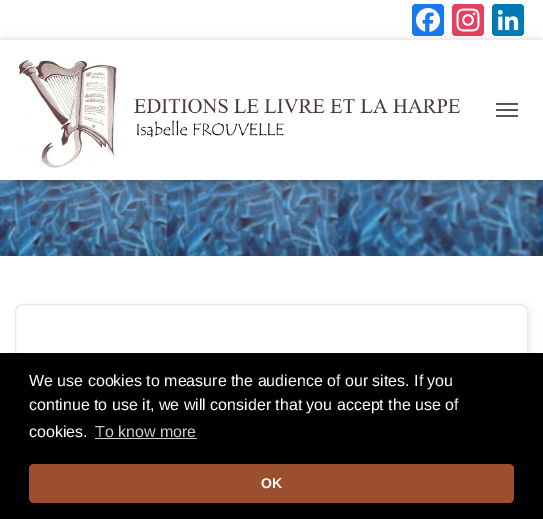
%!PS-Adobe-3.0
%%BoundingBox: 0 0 543 519
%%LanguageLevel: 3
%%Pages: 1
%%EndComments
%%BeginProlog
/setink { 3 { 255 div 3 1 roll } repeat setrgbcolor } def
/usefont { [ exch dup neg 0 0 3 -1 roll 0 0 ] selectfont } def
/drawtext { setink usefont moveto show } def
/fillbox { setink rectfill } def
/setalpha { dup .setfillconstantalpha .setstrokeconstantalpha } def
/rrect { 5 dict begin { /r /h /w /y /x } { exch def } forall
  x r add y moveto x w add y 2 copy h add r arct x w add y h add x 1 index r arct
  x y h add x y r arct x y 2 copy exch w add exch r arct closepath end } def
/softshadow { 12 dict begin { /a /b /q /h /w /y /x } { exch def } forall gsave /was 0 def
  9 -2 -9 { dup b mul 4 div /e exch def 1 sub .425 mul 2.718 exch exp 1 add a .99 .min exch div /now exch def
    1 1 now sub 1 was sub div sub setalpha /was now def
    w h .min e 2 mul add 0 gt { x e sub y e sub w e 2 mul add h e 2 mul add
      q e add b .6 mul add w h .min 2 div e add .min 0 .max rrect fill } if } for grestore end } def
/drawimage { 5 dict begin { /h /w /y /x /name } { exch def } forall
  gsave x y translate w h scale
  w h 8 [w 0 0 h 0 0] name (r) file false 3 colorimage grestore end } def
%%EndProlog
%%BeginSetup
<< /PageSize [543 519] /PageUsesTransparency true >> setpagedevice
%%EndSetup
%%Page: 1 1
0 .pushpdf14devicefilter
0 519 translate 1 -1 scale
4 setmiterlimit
0 0 543 519 255 255 255 fillbox
24 119 242 setink
412 4 32 32 4 rrect fill
(assets/img1.rgb) 416 8 24 24 drawimage
228 64 95 setink
452 4 32 32 4 rrect fill
(assets/img2.rgb) 456 8 24 24 drawimage
0 123 181 setink
492 4 32 32 4 rrect fill
(assets/img3.rgb) 497 9 22 22 drawimage
(assets/img5.rgb) 0 180 543 76 drawimage
0 0 0 setink
2 46 539 136 0 2.5 0.1 softshadow
0 41 543 140 0 5 0.12 softshadow
6 47 531 128 0 5 0.42 softshadow
0 40 543 140 255 255 255 fillbox
(assets/img4.rgb) 18 60 442 109 drawimage
85 85 85 setink
496 103 22 2 1 rrect fill
496 109 22 2 1 rrect fill
496 115 22 2 1 rrect fill
0 0 0 setink
-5 257 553 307 0 15 0.12 softshadow
0 256 543 97 255 255 255 fillbox
0 0 0 setink
17 306 513 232 8 3.5 0.07 softshadow
255 255 255 setink
15.5 304.5 512 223 7.5 rrect gsave fill grestore
232 232 232 setink
stroke
0 353 543 166 0 0 0 fillbox
(We use cookies to measure the audience of our sites. If you) 29 386 /LiberationSans-Regular 16 255 255 255 drawtext
(continue to use it, we will consider that you accept the use of) 29 410 /LiberationSans-Regular 16 255 255 255 drawtext
(cookies.) 29 437 /LiberationSans-Regular 16 255 255 255 drawtext
(To know more) 95 437 /LiberationSans-Regular 16 204 204 204 drawtext
95 438 102 1 204 204 204 fillbox
156 79 47 setink
29 464 485 39 5 rrect fill
(OK) 261 488 /LiberationSans-Bold 14 255 255 255 drawtext
.poppdf14devicefilter showpage
%%EOF
